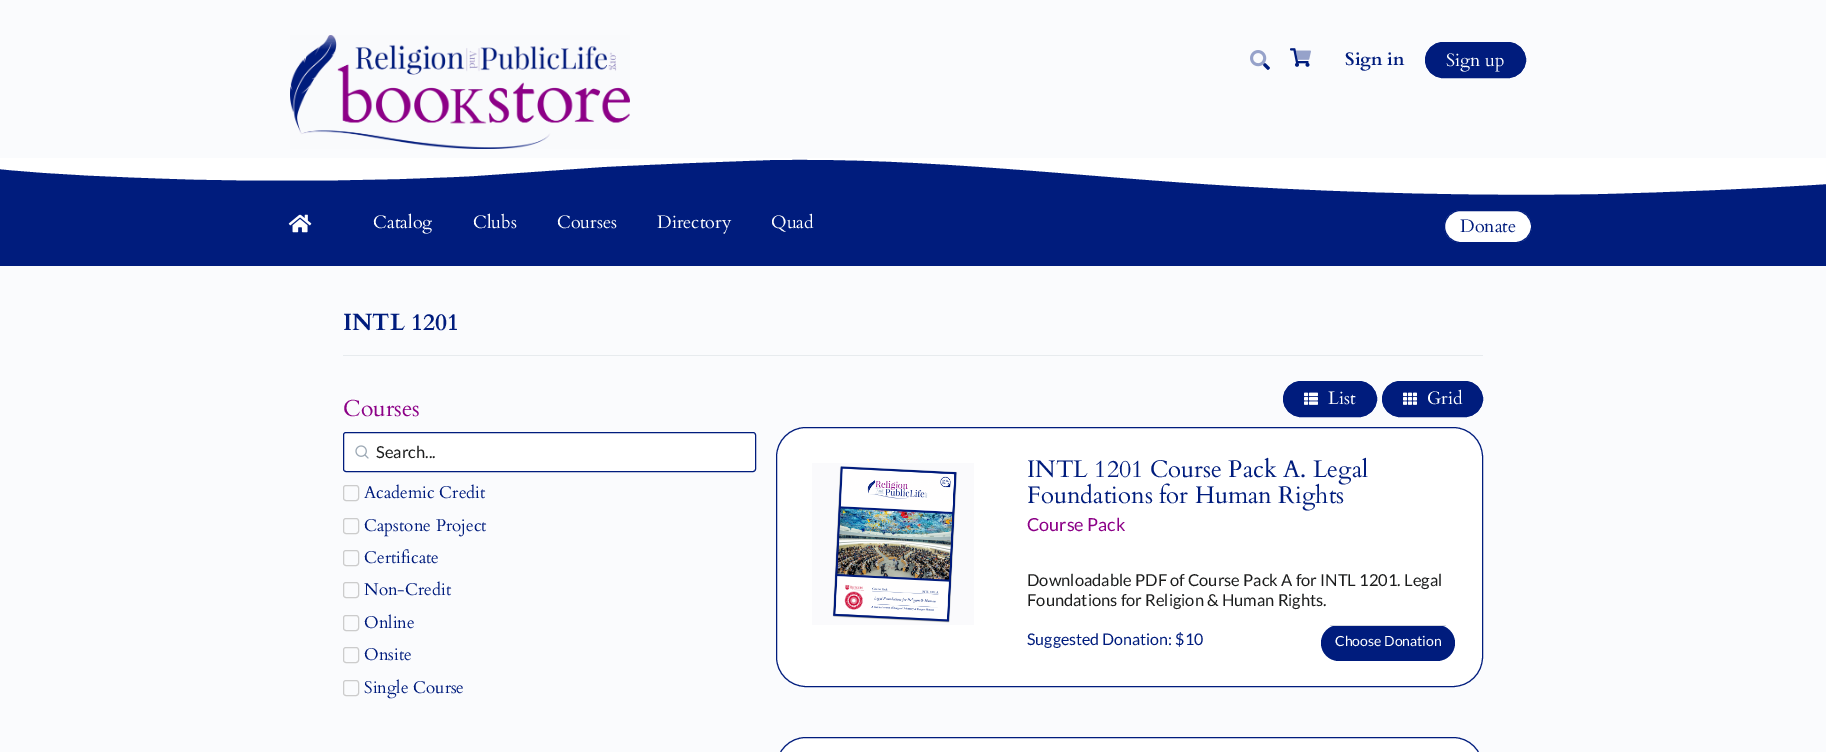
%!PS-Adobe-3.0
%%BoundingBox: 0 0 1826 752
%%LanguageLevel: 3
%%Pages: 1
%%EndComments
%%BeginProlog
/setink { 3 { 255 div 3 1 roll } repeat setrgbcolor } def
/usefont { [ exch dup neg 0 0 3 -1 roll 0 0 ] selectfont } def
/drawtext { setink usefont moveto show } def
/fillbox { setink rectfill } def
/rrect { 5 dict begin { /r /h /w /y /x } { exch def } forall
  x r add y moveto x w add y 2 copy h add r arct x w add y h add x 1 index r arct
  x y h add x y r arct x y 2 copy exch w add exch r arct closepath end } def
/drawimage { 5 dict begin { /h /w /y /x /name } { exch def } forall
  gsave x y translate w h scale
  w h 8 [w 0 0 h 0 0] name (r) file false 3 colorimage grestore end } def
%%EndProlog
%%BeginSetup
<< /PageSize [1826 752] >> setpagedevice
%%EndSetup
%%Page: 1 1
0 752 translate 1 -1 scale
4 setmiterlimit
0 0 1826 752 250 251 253 fillbox
(assets/img1.rgb) 290 35 340 114 drawimage
(assets/img2.rgb) 1250 50 20 20 drawimage
(assets/img3.rgb) 1290 48 21 19 drawimage
(Sign in) 1345 65 /Cardo-Bold 18 0 28 125 drawtext
1425.5 42.5 100 35 17.5 rrect gsave fill grestore
stroke
(Sign up) 1446 66 /Cardo-Regular 18 255 255 255 drawtext
0 159 1826 107 0 28 125 fillbox
255 255 255 setink
770 160 moveto 926 157 1081 177 1236 186 curveto 1356 193 1477 196 1598 194 curveto 1674 192 1751 189 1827 184 curveto 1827 158 lineto -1 158 lineto -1 169 lineto 58 175 118 177 177 179 curveto 276 182 375 181 474 176 curveto 602 167 lineto 658 164 714 162 770 160 curveto closepath fill
(assets/img4.rgb) 288 214 24 19 drawimage
(Catalog) 373 228 /Cardo-Regular 18 255 255 255 drawtext
(Clubs) 473 228 /Cardo-Regular 18 255 255 255 drawtext
(Courses) 557 228 /Cardo-Regular 18 255 255 255 drawtext
(Directory) 657 228 /Cardo-Regular 18 255 255 255 drawtext
(Quad) 771 228 /Cardo-Regular 18 255 255 255 drawtext
1444.5 210.5 87 32 16 rrect gsave fill grestore
0 28 125 setink
stroke
(Donate) 1460 232 /Cardo-Regular 18 0 28 125 drawtext
343 355 1140 1 231 235 238 fillbox
(INTL 1201) 343 330 /Cardo-Bold 23.5 0 28 125 drawtext
(Courses) 343 416 /Cardo-Regular 23 140 0 135 drawtext
255 255 255 setink
343 432 413 40 3 rrect fill
(assets/img5.rgb) 355 445 14 14 drawimage
0 28 125 setink
343.5 432.5 412 39 2.5 rrect stroke
(Search...) 376 458 /Lato-Regular 16.5 28 29 29 drawtext
204 204 204 setink
343.5 485.5 15 15 2.5 rrect stroke
(Academic Credit) 364 498 /Cardo-Regular 17 0 28 125 drawtext
204 204 204 setink
343.5 518.5 15 15 2.5 rrect stroke
(Capstone Project) 364 531 /Cardo-Regular 17 0 28 125 drawtext
204 204 204 setink
343.5 550.5 15 15 2.5 rrect stroke
(Certificate) 364 563 /Cardo-Regular 17 0 28 125 drawtext
204 204 204 setink
343.5 582.5 15 15 2.5 rrect stroke
(Non-Credit) 364 595 /Cardo-Regular 17 0 28 125 drawtext
204 204 204 setink
343.5 615.5 15 15 2.5 rrect stroke
(Online) 364 628 /Cardo-Regular 17 0 28 125 drawtext
204 204 204 setink
343.5 647.5 15 15 2.5 rrect stroke
(Onsite) 364 660 /Cardo-Regular 17 0 28 125 drawtext
204 204 204 setink
343.5 680.5 15 15 2.5 rrect stroke
(Single Course) 364 693 /Cardo-Regular 17 0 28 125 drawtext
1283.5 381.5 93 35 17.5 rrect gsave fill grestore
stroke
(assets/img6.rgb) 1304 392 14 13 drawimage
(List) 1328 404 /Cardo-Regular 18 255 255 255 drawtext
0 28 125 setink
1382.5 381.5 100 35 17.5 rrect gsave fill grestore
stroke
(assets/img7.rgb) 1403 392 14 13 drawimage
(Grid) 1427 404 /Cardo-Regular 18 255 255 255 drawtext
776.5 427.5 706 259 29.5 rrect gsave fill grestore
0 28 125 setink
stroke
(assets/img8.rgb) 812 463 162 162 drawimage
(INTL 1201 Course Pack A. Legal) 1027 477 /Cardo-Regular 24 0 28 125 drawtext
(Foundations for Human Rights) 1027 503 /Cardo-Regular 24 0 28 125 drawtext
(Course Pack) 1027 531 /Lato-Regular 18 140 0 135 drawtext
(Downloadable PDF of Course Pack A for INTL 1201. Legal) 1027 586 /Lato-Regular 16.5 28 29 29 drawtext
(Foundations for Religion & Human Rights.) 1027 606 /Lato-Regular 16.5 28 29 29 drawtext
(Suggested Donation: $10) 1027 645 /Lato-Regular 16 0 28 125 drawtext
1321 625 134 36 18 rrect fill
1330 625 116 1 214 217 221 fillbox
(Choose Donation) 1335 646 /Lato-Regular 14 255 255 255 drawtext
776.5 737.5 706 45 29.5 rrect gsave fill grestore
0 28 125 setink
stroke
showpage
%%EOF
